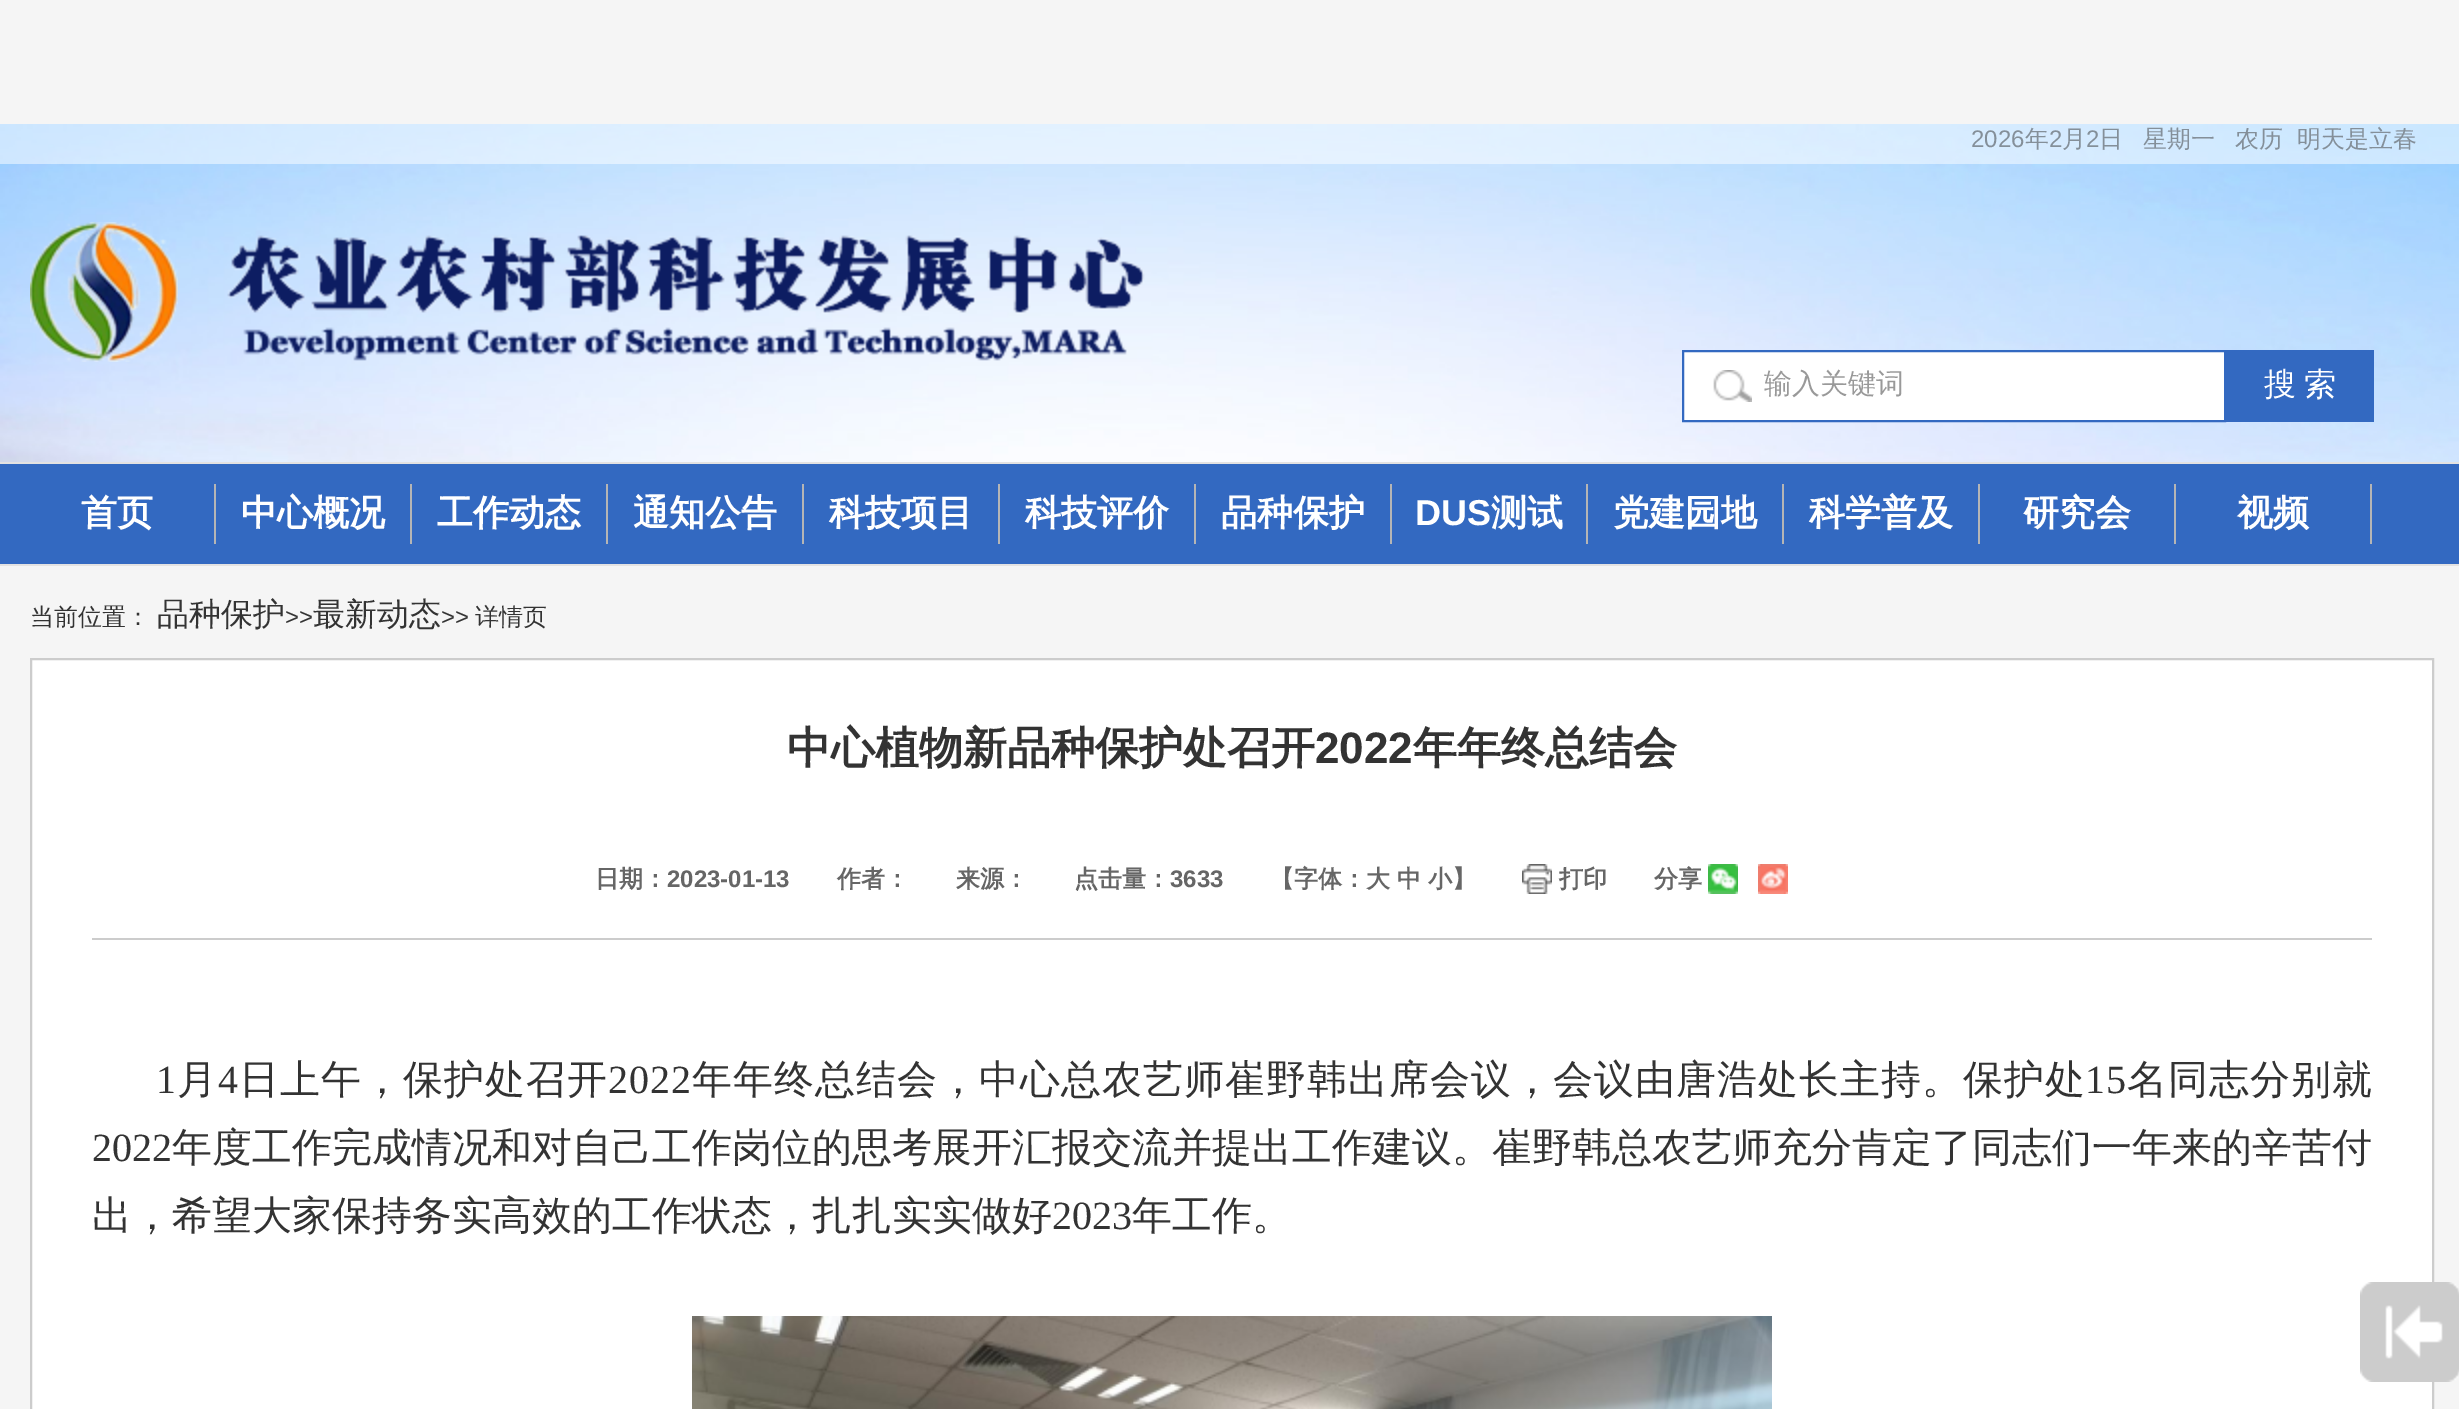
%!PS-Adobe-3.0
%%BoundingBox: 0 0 2459 1409
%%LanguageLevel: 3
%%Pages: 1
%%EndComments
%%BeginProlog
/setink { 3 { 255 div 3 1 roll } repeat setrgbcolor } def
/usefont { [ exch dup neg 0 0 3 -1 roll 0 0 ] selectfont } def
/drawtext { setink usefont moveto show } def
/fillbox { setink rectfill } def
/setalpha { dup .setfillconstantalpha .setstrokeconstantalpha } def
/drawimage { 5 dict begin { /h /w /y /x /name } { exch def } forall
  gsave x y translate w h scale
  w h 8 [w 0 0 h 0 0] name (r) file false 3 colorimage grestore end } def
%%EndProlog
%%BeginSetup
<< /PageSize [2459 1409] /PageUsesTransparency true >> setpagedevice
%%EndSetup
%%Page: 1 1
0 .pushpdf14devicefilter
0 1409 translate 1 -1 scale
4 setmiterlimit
0 0 2459 1409 245 245 245 fillbox
(assets/img1.rgb) 0 124 2459 338 drawimage
0.5 setalpha
0 124 2459 40 255 255 255 fillbox
1 setalpha
(2026) 1971 147 /LiberationSans-Regular 24 132 143 153 drawtext
(年) 2025 147 /WenQuanYiZenHei-Medium 24 132 143 153 drawtext
(2) 2049 147 /LiberationSans-Regular 24 132 143 153 drawtext
(月) 2062 147 /WenQuanYiZenHei-Medium 24 132 143 153 drawtext
(2) 2086 147 /LiberationSans-Regular 24 132 143 153 drawtext
(日) 2099 147 /WenQuanYiZenHei-Medium 24 132 143 153 drawtext
(星期一) 2143 147 /WenQuanYiZenHei-Medium 24 132 143 153 drawtext
(农历) 2235 147 /WenQuanYiZenHei-Medium 24 132 143 153 drawtext
(明天是立春) 2297 147 /WenQuanYiZenHei-Medium 24 132 143 153 drawtext
(assets/img2.rgb) 30 222 148 140 drawimage
(assets/img3.rgb) 227 235 918 126 drawimage
1684 352 540 68 255 255 255 fillbox
(assets/img4.rgb) 1713 370 39 32 drawimage
51 105 193 setink
2 setlinewidth
1683 351 542 70 rectstroke
(输入关键词) 1764 393 /WenQuanYiZenHei-Medium 28 153 153 153 drawtext
2226 350 148 72 51 105 193 fillbox
/WenQuanYiZenHei-Medium 32 usefont
255 255 255 setink
2264 395 moveto -2 0 32 (搜 索) widthshow
0 464 2459 100 51 105 193 fillbox
0 462 2459 2 227 226 226 fillbox
0 564 2459 2 227 226 226 fillbox
214 484 2 60 181 181 181 fillbox
(首页) 81 525 /WenQuanYiZenHei-Bold 36 255 255 255 drawtext
410 484 2 60 181 181 181 fillbox
(中心概况) 241 525 /WenQuanYiZenHei-Bold 36 255 255 255 drawtext
606 484 2 60 181 181 181 fillbox
(工作动态) 437 525 /WenQuanYiZenHei-Bold 36 255 255 255 drawtext
802 484 2 60 181 181 181 fillbox
(通知公告) 633 525 /WenQuanYiZenHei-Bold 36 255 255 255 drawtext
998 484 2 60 181 181 181 fillbox
(科技项目) 829 525 /WenQuanYiZenHei-Bold 36 255 255 255 drawtext
1194 484 2 60 181 181 181 fillbox
(科技评价) 1025 525 /WenQuanYiZenHei-Bold 36 255 255 255 drawtext
1390 484 2 60 181 181 181 fillbox
(品种保护) 1221 525 /WenQuanYiZenHei-Bold 36 255 255 255 drawtext
1586 484 2 60 181 181 181 fillbox
(DUS) 1415 525 /LiberationSans-Bold 36 255 255 255 drawtext
(测试) 1491 525 /WenQuanYiZenHei-Bold 36 255 255 255 drawtext
1782 484 2 60 181 181 181 fillbox
(党建园地) 1613 525 /WenQuanYiZenHei-Bold 36 255 255 255 drawtext
1978 484 2 60 181 181 181 fillbox
(科学普及) 1809 525 /WenQuanYiZenHei-Bold 36 255 255 255 drawtext
2174 484 2 60 181 181 181 fillbox
(研究会) 2023 525 /WenQuanYiZenHei-Bold 36 255 255 255 drawtext
2370 484 2 60 181 181 181 fillbox
(视频) 2237 525 /WenQuanYiZenHei-Bold 36 255 255 255 drawtext
(当前位置：) 30 625 /WenQuanYiZenHei-Medium 24 51 51 51 drawtext
(品种保护) 157 625 /WenQuanYiZenHei-Medium 32 51 51 51 drawtext
(>>) 285 625 /LiberationSans-Regular 24 51 51 51 drawtext
(最新动态) 313 625 /WenQuanYiZenHei-Medium 32 51 51 51 drawtext
(>>) 441 625 /LiberationSans-Regular 24 51 51 51 drawtext
(详情页) 475 625 /WenQuanYiZenHei-Medium 24 51 51 51 drawtext
255 255 255 setink
31 659 moveto 2433 659 lineto 2433 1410 lineto 31 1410 lineto closepath gsave fill grestore
204 204 204 setink
stroke
(中心植物新品种保护处召开) 787 763 /WenQuanYiZenHei-Bold 44 51 51 51 drawtext
(2022) 1315 763 /LiberationSans-Bold 44 51 51 51 drawtext
(年年终总结会) 1413 763 /WenQuanYiZenHei-Bold 44 51 51 51 drawtext
92 938 2280 2 204 204 204 fillbox
(日期：) 595 887 /WenQuanYiZenHei-Bold 24 102 102 102 drawtext
(2023-01-13) 667 887 /LiberationSans-Bold 24 102 102 102 drawtext
(作者：) 837 887 /WenQuanYiZenHei-Bold 24 102 102 102 drawtext
(来源：) 956 887 /WenQuanYiZenHei-Bold 24 102 102 102 drawtext
(点击量：) 1074 887 /WenQuanYiZenHei-Bold 24 102 102 102 drawtext
(3633) 1170 887 /LiberationSans-Bold 24 102 102 102 drawtext
(【字体：大) 1270 887 /WenQuanYiZenHei-Bold 24 102 102 102 drawtext
(中) 1397 887 /WenQuanYiZenHei-Bold 24 102 102 102 drawtext
(小】) 1428 887 /WenQuanYiZenHei-Bold 24 102 102 102 drawtext
(assets/img5.rgb) 1522 864 30 30 drawimage
(打印) 1559 887 /WenQuanYiZenHei-Bold 24 102 102 102 drawtext
(分享) 1654 887 /WenQuanYiZenHei-Bold 24 102 102 102 drawtext
(assets/img6.rgb) 1708 864 30 30 drawimage
(assets/img7.rgb) 1758 864 30 30 drawimage
/LiberationSerif-Regular 40 usefont
51 51 51 setink
156 1093 moveto 1 0 (1) ashow
/WenQuanYiZenHei-Medium 40 usefont
177 1093 moveto 1 0 (月) ashow
/LiberationSerif-Regular 40 usefont
218 1093 moveto 1 0 (4) ashow
/WenQuanYiZenHei-Medium 40 usefont
239 1093 moveto 1 0 (日上午，保护处召开) ashow
/LiberationSerif-Regular 40 usefont
608 1093 moveto 1 0 (2022) ashow
/WenQuanYiZenHei-Medium 40 usefont
692 1093 moveto 1 0 (年年终总结会，中心总农艺师崔野韩出席会议，会议由唐浩处长主持。保护处) ashow
/LiberationSerif-Regular 40 usefont
2085 1093 moveto 1 0 (15) ashow
/WenQuanYiZenHei-Medium 40 usefont
2127 1093 moveto 1 0 (名同志分别就) ashow
(2022) 92 1161 /LiberationSerif-Regular 40 51 51 51 drawtext
(年度工作完成情况和对自己工作岗位的思考展开汇报交流并提出工作建议。崔野韩总农艺师充分肯定了同志们一年来的辛苦付) 172 1161 /WenQuanYiZenHei-Medium 40 51 51 51 drawtext
(出，希望大家保持务实高效的工作状态，扎扎实实做好) 92 1229 /WenQuanYiZenHei-Medium 40 51 51 51 drawtext
(2023) 1052 1229 /LiberationSerif-Regular 40 51 51 51 drawtext
(年工作。) 1132 1229 /WenQuanYiZenHei-Medium 40 51 51 51 drawtext
(assets/img8.rgb) 692 1316 1080 93 drawimage
(assets/img9.rgb) 2360 1282 99 100 drawimage
.poppdf14devicefilter showpage
%%EOF
